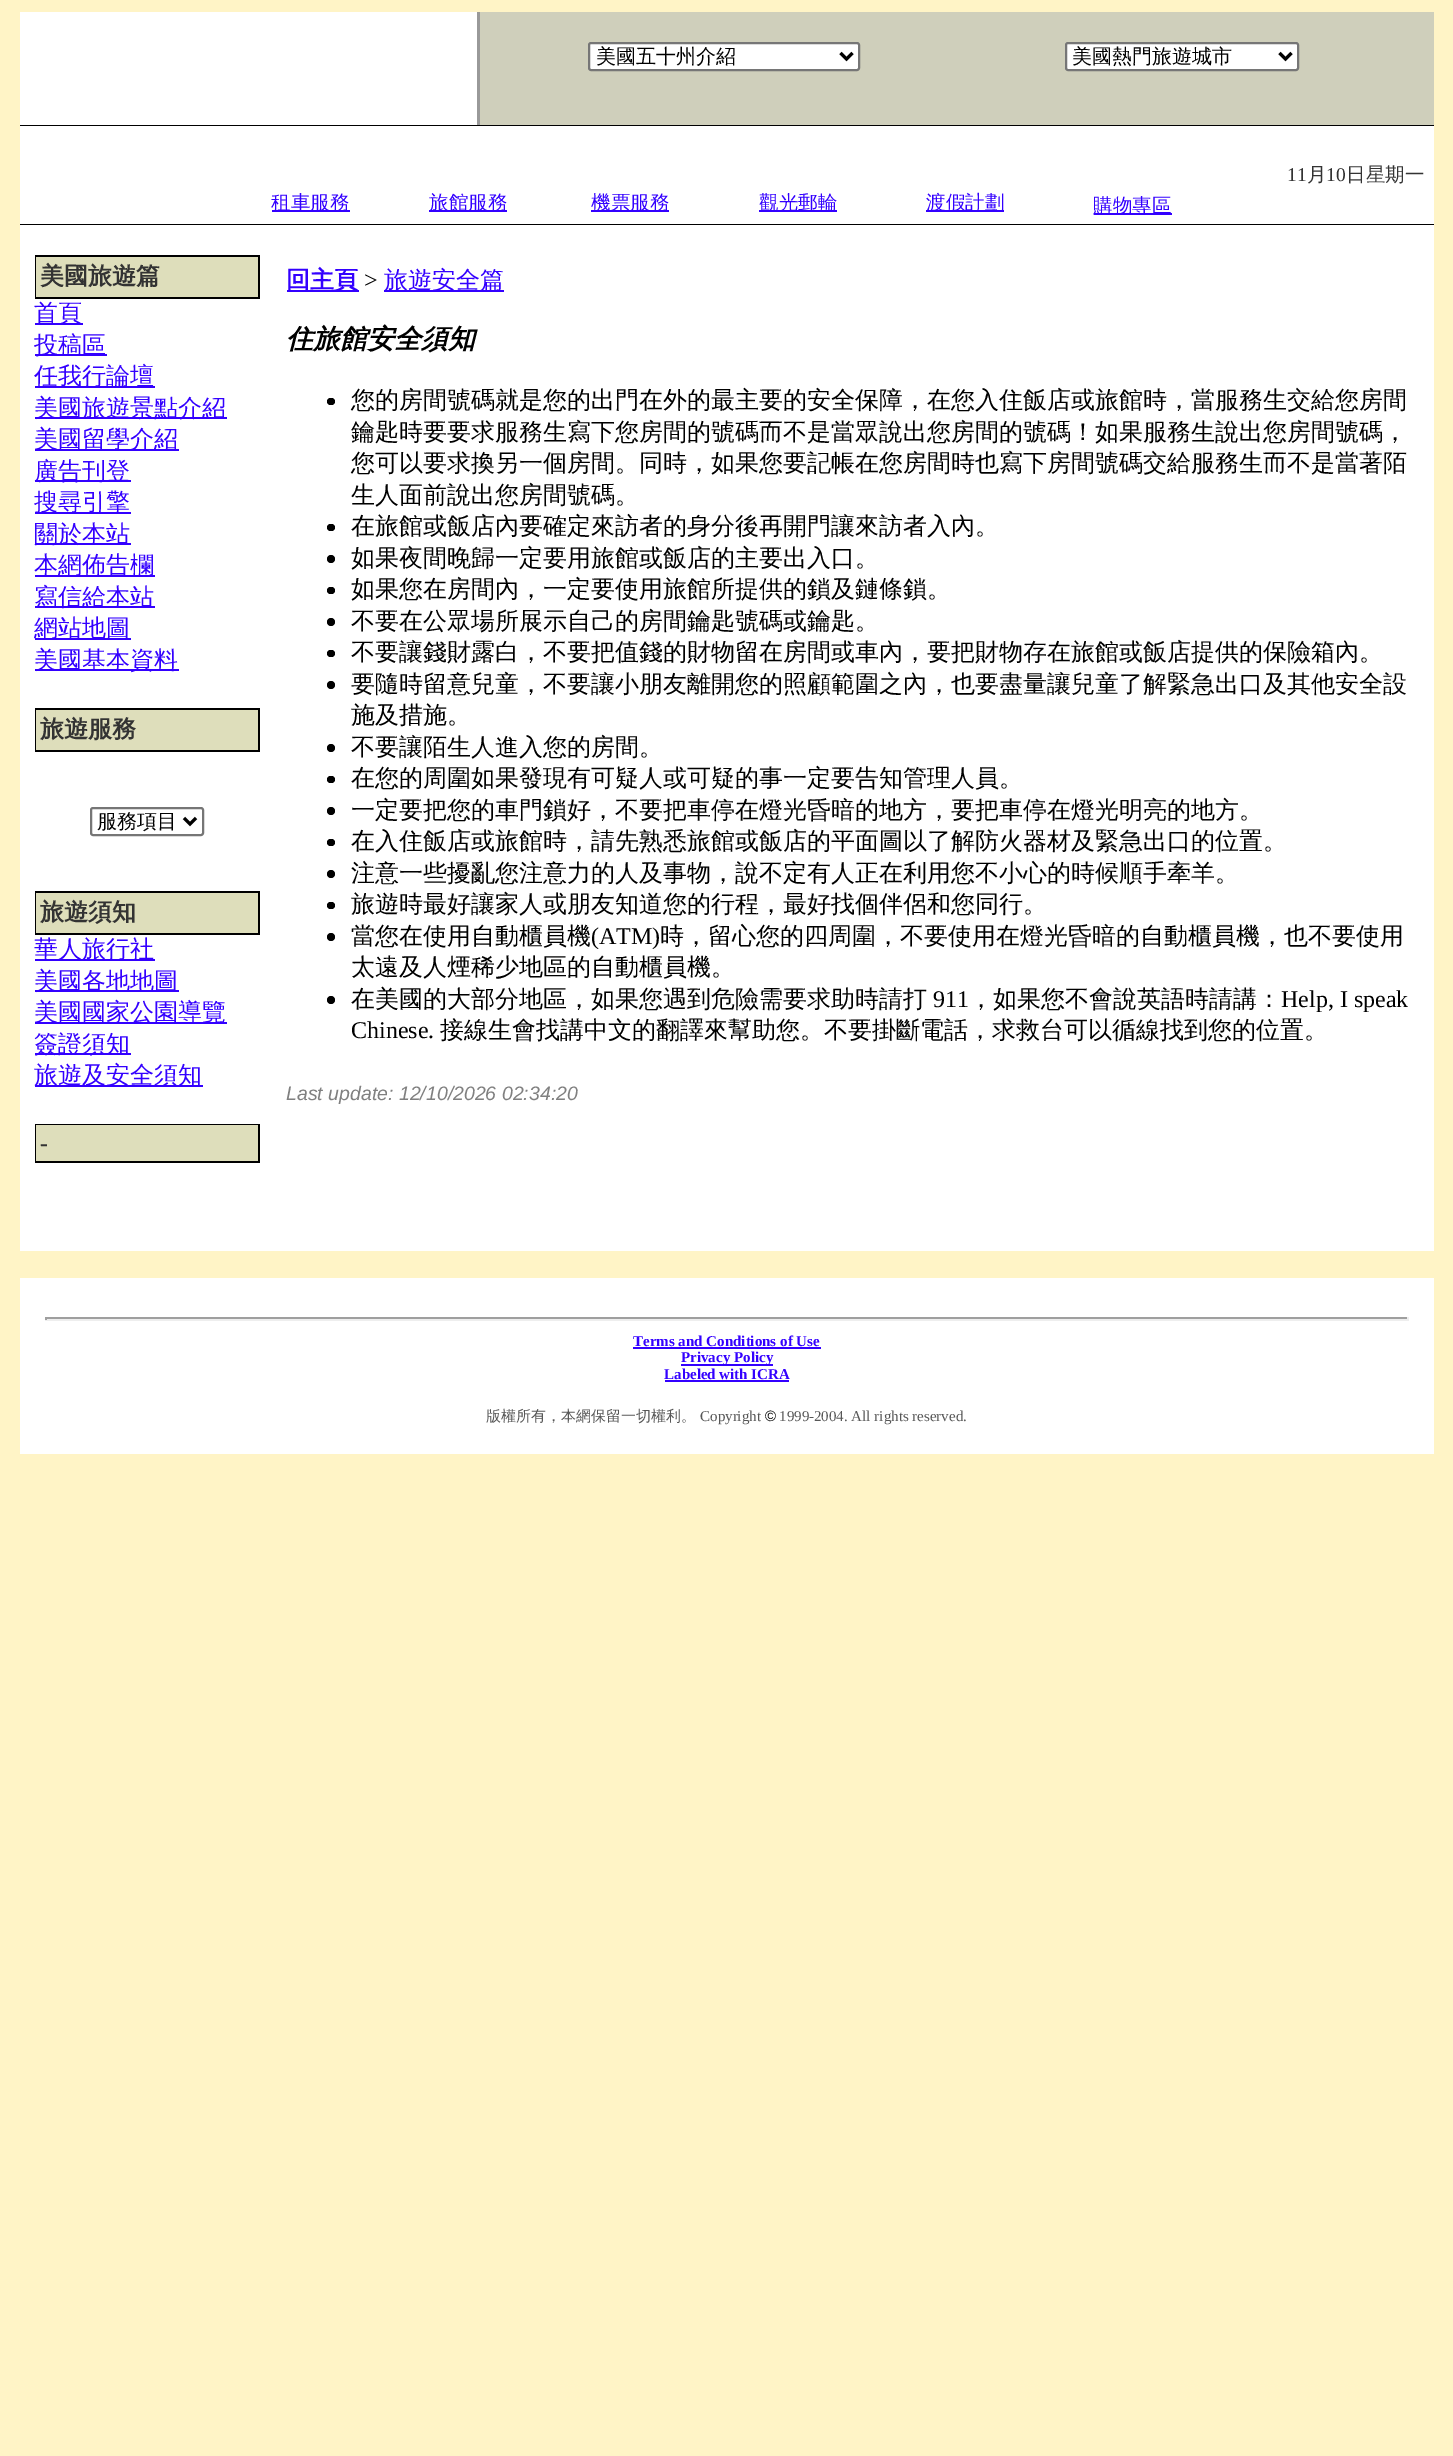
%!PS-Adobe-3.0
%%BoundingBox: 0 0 1453 2456
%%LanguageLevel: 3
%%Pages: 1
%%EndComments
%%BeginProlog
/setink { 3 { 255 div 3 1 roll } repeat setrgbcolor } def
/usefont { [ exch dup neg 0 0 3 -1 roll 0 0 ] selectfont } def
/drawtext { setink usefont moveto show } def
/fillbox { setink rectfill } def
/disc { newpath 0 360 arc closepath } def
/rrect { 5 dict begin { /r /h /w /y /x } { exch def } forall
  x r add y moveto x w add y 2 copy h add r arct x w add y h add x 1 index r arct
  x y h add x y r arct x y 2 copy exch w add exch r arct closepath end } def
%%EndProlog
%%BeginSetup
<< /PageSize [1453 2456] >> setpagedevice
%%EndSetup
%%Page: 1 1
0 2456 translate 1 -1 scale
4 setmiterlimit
0 0 1453 2456 255 244 198 fillbox
20 12 457 113 255 255 255 fillbox
477 12 3 113 153 153 153 fillbox
480 12 954 113 207 207 187 fillbox
255 255 255 setink
589 43 270 27 2 rrect gsave fill grestore
118 118 118 setink
2 setlinewidth
stroke
0 0 0 setink
3 setlinewidth
840.5 53 moveto 846.5 59 lineto 852.5 53 lineto stroke
(美國五十州介紹) 596 63 /WenQuanYiZenHei-Medium 20 0 0 0 drawtext
255 255 255 setink
1066 43 232 27 2 rrect gsave fill grestore
118 118 118 setink
2 setlinewidth
stroke
0 0 0 setink
3 setlinewidth
1279.5 53 moveto 1285.5 59 lineto 1291.5 53 lineto stroke
(美國熱門旅遊城市) 1072 63 /WenQuanYiZenHei-Medium 20 0 0 0 drawtext
20 125 1414 1 0 0 0 fillbox
20 126 1414 98 255 255 255 fillbox
(11) 1287 181 /LiberationSerif-Regular 19.5 51 51 51 drawtext
(月) 1307 181 /WenQuanYiZenHei-Medium 19.5 51 51 51 drawtext
(10) 1326 181 /LiberationSerif-Regular 19.5 51 51 51 drawtext
(日星期一) 1346 181 /WenQuanYiZenHei-Medium 19.5 51 51 51 drawtext
272 210 78 2 51 0 255 fillbox
(租車服務) 271 209 /WenQuanYiZenHei-Medium 19.5 51 0 255 drawtext
429 210 78 2 51 0 255 fillbox
(旅館服務) 429 209 /WenQuanYiZenHei-Medium 19.5 51 0 255 drawtext
591 210 78 2 51 0 255 fillbox
(機票服務) 591 209 /WenQuanYiZenHei-Medium 19.5 51 0 255 drawtext
759 210 78 2 51 0 255 fillbox
(觀光郵輪) 759 209 /WenQuanYiZenHei-Medium 19.5 51 0 255 drawtext
926 210 78 2 51 0 255 fillbox
(渡假計劃) 926 209 /WenQuanYiZenHei-Medium 19.5 51 0 255 drawtext
1094 213 78 2 51 0 255 fillbox
(購物專區) 1093 212 /WenQuanYiZenHei-Medium 19.5 51 0 255 drawtext
20 224 1414 1 0 0 0 fillbox
20 225 1414 1026 255 255 255 fillbox
35 255 225 44 0 0 0 fillbox
36 257 222 40 222 222 187 fillbox
(美國旅遊篇) 40 284 /WenQuanYiZenHei-Bold 24 51 51 51 drawtext
35 323 48 2 51 0 255 fillbox
(首頁) 34 321 /WenQuanYiZenHei-Medium 24 51 0 255 drawtext
35 354 72 2 51 0 255 fillbox
(投稿區) 34 353 /WenQuanYiZenHei-Medium 24 51 0 255 drawtext
35 386 120 2 51 0 255 fillbox
(任我行論壇) 34 384 /WenQuanYiZenHei-Medium 24 51 0 255 drawtext
35 417 192 2 51 0 255 fillbox
(美國旅遊景點介紹) 34 416 /WenQuanYiZenHei-Medium 24 51 0 255 drawtext
35 449 144 2 51 0 255 fillbox
(美國留學介紹) 34 447 /WenQuanYiZenHei-Medium 24 51 0 255 drawtext
35 480 96 2 51 0 255 fillbox
(廣告刊登) 34 479 /WenQuanYiZenHei-Medium 24 51 0 255 drawtext
35 512 96 2 51 0 255 fillbox
(搜尋引擎) 34 510 /WenQuanYiZenHei-Medium 24 51 0 255 drawtext
35 543 96 2 51 0 255 fillbox
(關於本站) 34 542 /WenQuanYiZenHei-Medium 24 51 0 255 drawtext
35 575 120 2 51 0 255 fillbox
(本網佈告欄) 34 573 /WenQuanYiZenHei-Medium 24 51 0 255 drawtext
35 606 120 2 51 0 255 fillbox
(寫信給本站) 34 605 /WenQuanYiZenHei-Medium 24 51 0 255 drawtext
35 638 96 2 51 0 255 fillbox
(網站地圖) 34 636 /WenQuanYiZenHei-Medium 24 51 0 255 drawtext
35 669 144 2 51 0 255 fillbox
(美國基本資料) 34 668 /WenQuanYiZenHei-Medium 24 51 0 255 drawtext
35 708 225 44 0 0 0 fillbox
36 710 222 40 222 222 187 fillbox
(旅遊服務) 40 737 /WenQuanYiZenHei-Bold 24 51 51 51 drawtext
118 118 118 setink
2 setlinewidth
91 808 112 27 2 rrect stroke
0 0 0 setink
3 setlinewidth
184 818 moveto 190 824 lineto 196 818 lineto stroke
(服務項目) 97 828 /WenQuanYiZenHei-Medium 20 0 0 0 drawtext
35 891 225 44 0 0 0 fillbox
36 893 222 40 222 222 187 fillbox
(旅遊須知) 40 920 /WenQuanYiZenHei-Bold 24 51 51 51 drawtext
35 959 120 2 51 0 255 fillbox
(華人旅行社) 34 957 /WenQuanYiZenHei-Medium 24 51 0 255 drawtext
35 990 144 2 51 0 255 fillbox
(美國各地地圖) 34 989 /WenQuanYiZenHei-Medium 24 51 0 255 drawtext
35 1022 192 2 51 0 255 fillbox
(美國國家公園導覽) 34 1020 /WenQuanYiZenHei-Medium 24 51 0 255 drawtext
35 1053 96 2 51 0 255 fillbox
(簽證須知) 34 1052 /WenQuanYiZenHei-Medium 24 51 0 255 drawtext
35 1085 168 2 51 0 255 fillbox
(旅遊及安全須知) 34 1083 /WenQuanYiZenHei-Medium 24 51 0 255 drawtext
35 1124 225 39 0 0 0 fillbox
36 1125 222 36 222 222 187 fillbox
(-) 40 1151 /LiberationSerif-Bold 24 51 51 51 drawtext
287 290 72 2 51 0 255 fillbox
(回主頁) 286 288 /WenQuanYiZenHei-Bold 24 51 0 255 drawtext
(>) 364 288 /LiberationSerif-Regular 24 0 0 0 drawtext
384 290 120 2 51 0 255 fillbox
(旅遊安全篇) 384 288 /WenQuanYiZenHei-Medium 24 51 0 255 drawtext
(住旅館安全須知) 286 348 /WenQuanYiZenHei-BoldItalic 27 0 0 0 drawtext
327 398 8 7 3.5 rrect fill
(您的房間號碼就是您的出門在外的最主要的安全保障，在您入住飯店或旅館時，當服務生交給您房間) 351 408 /WenQuanYiZenHei-Medium 24 0 0 0 drawtext
(鑰匙時要要求服務生寫下您房間的號碼而不是當眾說出您房間的號碼！如果服務生說出您房間號碼，) 351 440 /WenQuanYiZenHei-Medium 24 0 0 0 drawtext
(您可以要求換另一個房間。同時，如果您要記帳在您房間時也寫下房間號碼交給服務生而不是當著陌) 351 471 /WenQuanYiZenHei-Medium 24 0 0 0 drawtext
(生人面前說出您房間號碼。) 351 503 /WenQuanYiZenHei-Medium 24 0 0 0 drawtext
327 524 8 7 3.5 rrect fill
(在旅館或飯店內要確定來訪者的身分後再開門讓來訪者入內。) 351 534 /WenQuanYiZenHei-Medium 24 0 0 0 drawtext
331 559 4 disc fill
(如果夜間晚歸一定要用旅館或飯店的主要出入口。) 351 566 /WenQuanYiZenHei-Medium 24 0 0 0 drawtext
327 587 8 7 3.5 rrect fill
(如果您在房間內，一定要使用旅館所提供的鎖及鏈條鎖。) 351 597 /WenQuanYiZenHei-Medium 24 0 0 0 drawtext
331 622 4 disc fill
(不要在公眾場所展示自己的房間鑰匙號碼或鑰匙。) 351 629 /WenQuanYiZenHei-Medium 24 0 0 0 drawtext
327 650 8 7 3.5 rrect fill
(不要讓錢財露白，不要把值錢的財物留在房間或車內，要把財物存在旅館或飯店提供的保險箱內。) 351 660 /WenQuanYiZenHei-Medium 24 0 0 0 drawtext
331 685 4 disc fill
(要隨時留意兒童，不要讓小朋友離開您的照顧範圍之內，也要盡量讓兒童了解緊急出口及其他安全設) 351 692 /WenQuanYiZenHei-Medium 24 0 0 0 drawtext
(施及措施。) 351 723 /WenQuanYiZenHei-Medium 24 0 0 0 drawtext
331 748 4 disc fill
(不要讓陌生人進入您的房間。) 351 755 /WenQuanYiZenHei-Medium 24 0 0 0 drawtext
327 776 8 7 3.5 rrect fill
(在您的周圍如果發現有可疑人或可疑的事一定要告知管理人員。) 351 786 /WenQuanYiZenHei-Medium 24 0 0 0 drawtext
331 811 4 disc fill
(一定要把您的車門鎖好，不要把車停在燈光昏暗的地方，要把車停在燈光明亮的地方。) 351 818 /WenQuanYiZenHei-Medium 24 0 0 0 drawtext
327 839 8 7 3.5 rrect fill
(在入住飯店或旅館時，請先熟悉旅館或飯店的平面圖以了解防火器材及緊急出口的位置。) 351 849 /WenQuanYiZenHei-Medium 24 0 0 0 drawtext
331 874 4 disc fill
(注意一些擾亂您注意力的人及事物，說不定有人正在利用您不小心的時候順手牽羊。) 351 881 /WenQuanYiZenHei-Medium 24 0 0 0 drawtext
327 902 8 7 3.5 rrect fill
(旅遊時最好讓家人或朋友知道您的行程，最好找個伴侶和您同行。) 351 912 /WenQuanYiZenHei-Medium 24 0 0 0 drawtext
331 937 4 disc fill
(當您在使用自動櫃員機) 351 944 /WenQuanYiZenHei-Medium 24 0 0 0 drawtext
(\(ATM\)) 591 944 /LiberationSerif-Regular 24 0 0 0 drawtext
(時，留心您的四周圍，不要使用在燈光昏暗的自動櫃員機，也不要使用) 660 944 /WenQuanYiZenHei-Medium 24 0 0 0 drawtext
(太遠及人煙稀少地區的自動櫃員機。) 351 975 /WenQuanYiZenHei-Medium 24 0 0 0 drawtext
331 1000 4 disc fill
(在美國的大部分地區，如果您遇到危險需要求助時請打) 351 1007 /WenQuanYiZenHei-Medium 24 0 0 0 drawtext
(911) 933 1007 /LiberationSerif-Regular 24 0 0 0 drawtext
(，如果您不會說英語時請講：) 969 1007 /WenQuanYiZenHei-Medium 24 0 0 0 drawtext
(Help, I speak) 1281 1007 /LiberationSerif-Regular 24 0 0 0 drawtext
(Chinese.) 351 1038 /LiberationSerif-Regular 24 0 0 0 drawtext
(接線生會找講中文的翻譯來幫助您。不要掛斷電話，求救台可以循線找到您的位置。) 440 1038 /WenQuanYiZenHei-Medium 24 0 0 0 drawtext
(Last update: 12/10/2026 02:34:20) 286 1100 /LiberationSans-Italic 19.5 128 128 128 drawtext
20 1278 1414 176 255 255 255 fillbox
45 1317 1364 2 159 159 159 fillbox
1407 1317 2 3 238 238 238 fillbox
45 1319 1364 2 238 238 238 fillbox
45 1317 2 3 159 159 159 fillbox
(Terms and Conditions of Use) 633 1346 /LiberationSerif-Bold 15 51 0 255 drawtext
633 1347 188 2 51 0 255 fillbox
681 1364 92 2 51 0 255 fillbox
(Privacy Policy) 681 1362 /LiberationSerif-Bold 15 51 0 255 drawtext
(Labeled with ICRA) 664 1379 /LiberationSerif-Bold 15 51 0 255 drawtext
665 1380 124 2 51 0 255 fillbox
(版權所有，本網保留一切權利。) 486 1421 /WenQuanYiZenHei-Medium 15 87 87 87 drawtext
(Copyright) 700 1421 /LiberationSerif-Regular 15 87 87 87 drawtext
(©) 765 1421 /LiberationSans-Regular 15 0 0 0 drawtext
(1999-2004. All rights reserved.) 779 1421 /LiberationSerif-Regular 15 87 87 87 drawtext
showpage
%%EOF
